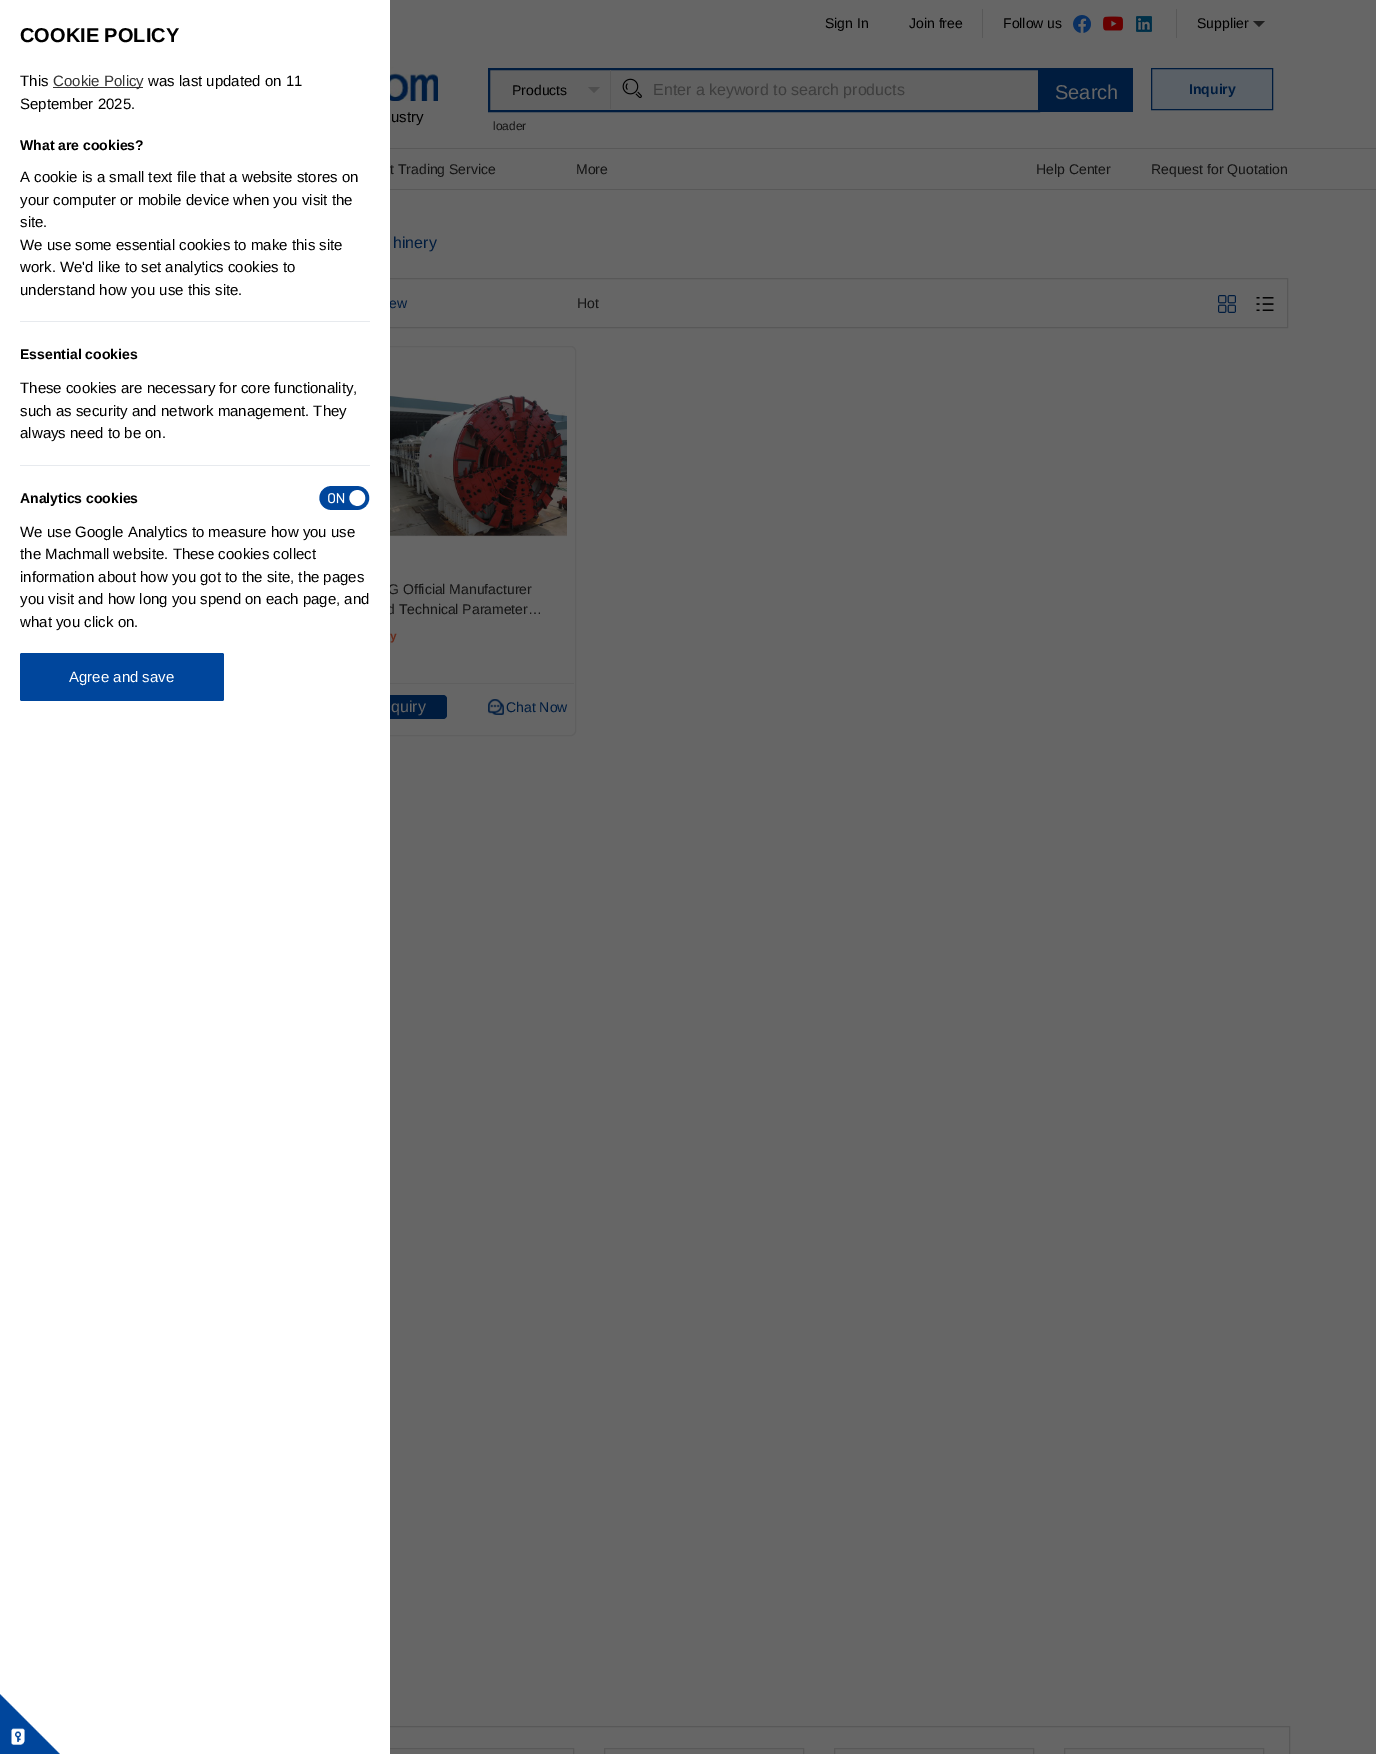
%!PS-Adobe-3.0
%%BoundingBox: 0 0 1376 1754
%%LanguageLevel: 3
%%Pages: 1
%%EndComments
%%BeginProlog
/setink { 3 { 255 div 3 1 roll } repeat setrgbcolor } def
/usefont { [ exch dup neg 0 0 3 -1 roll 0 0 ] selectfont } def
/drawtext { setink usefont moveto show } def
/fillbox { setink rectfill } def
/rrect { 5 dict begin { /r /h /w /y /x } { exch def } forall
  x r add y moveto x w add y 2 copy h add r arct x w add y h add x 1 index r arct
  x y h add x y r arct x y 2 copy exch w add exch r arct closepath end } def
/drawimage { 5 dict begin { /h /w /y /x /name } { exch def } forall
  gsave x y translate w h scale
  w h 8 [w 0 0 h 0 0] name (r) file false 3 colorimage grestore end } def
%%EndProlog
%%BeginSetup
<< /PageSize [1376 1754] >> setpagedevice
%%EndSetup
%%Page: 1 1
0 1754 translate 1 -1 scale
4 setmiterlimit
0 0 1376 1754 102 102 102 fillbox
88 88 88 setink
348.5 278.5 939 49 rectstroke
(ew) 389 308 /LiberationSans-Regular 14 0 28 62 drawtext
95 95 95 setink
348.5 346.5 227 389 4.5 rrect stroke
(G Official Manufacturer) 388 594 /LiberationSans-Regular 14 20 20 20 drawtext
(d Technical Parameter…) 387 614 /LiberationSans-Regular 14 20 20 20 drawtext
0 28 62 setink
357 695 90 24 4 rrect fill
88 88 88 setink
348.5 1726.5 941 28 rectstroke
374.5 1748.5 199 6 rectstroke
0 0 390 1754 255 255 255 fillbox
(COOKIE POLICY) 20 42 /LiberationSans-Bold 20 0 0 0 drawtext
(This) 20 86 /LiberationSans-Regular 15 0 0 0 drawtext
53 87 90 1 51 51 51 fillbox
(Cookie Policy) 53 86 /LiberationSans-Regular 15 51 51 51 drawtext
(was last updated on 11) 148 86 /LiberationSans-Regular 15 0 0 0 drawtext
(September 2025.) 20 109 /LiberationSans-Regular 15 0 0 0 drawtext
(What are cookies?) 20 150 /LiberationSans-Bold 14 0 0 0 drawtext
(A cookie is a small text file that a website stores on) 20 182 /LiberationSans-Regular 15 0 0 0 drawtext
(your computer or mobile device when you visit the) 20 205 /LiberationSans-Regular 15 0 0 0 drawtext
(site.) 20 227 /LiberationSans-Regular 15 0 0 0 drawtext
(We use some essential cookies to make this site) 20 250 /LiberationSans-Regular 15 0 0 0 drawtext
(work. We'd like to set analytics cookies to) 20 272 /LiberationSans-Regular 15 0 0 0 drawtext
(understand how you use this site.) 20 295 /LiberationSans-Regular 15 0 0 0 drawtext
20 321 350 1 231 234 238 fillbox
(Essential cookies) 20 359 /LiberationSans-Bold 14 0 0 0 drawtext
(These cookies are necessary for core functionality,) 20 393 /LiberationSans-Regular 15 0 0 0 drawtext
(such as security and network management. They) 20 416 /LiberationSans-Regular 15 0 0 0 drawtext
(always need to be on.) 20 438 /LiberationSans-Regular 15 0 0 0 drawtext
20 465 350 1 231 234 238 fillbox
(Analytics cookies) 20 503 /LiberationSans-Bold 14 0 0 0 drawtext
(assets/img1.rgb) 319 486 51 24 drawimage
(We use Google Analytics to measure how you use) 20 537 /LiberationSans-Regular 15 0 0 0 drawtext
(the Machmall website. These cookies collect) 20 559 /LiberationSans-Regular 15 0 0 0 drawtext
(information about how you got to the site, the pages) 20 582 /LiberationSans-Regular 15 0 0 0 drawtext
(you visit and how long you spend on each page, and) 20 604 /LiberationSans-Regular 15 0 0 0 drawtext
(what you click on.) 20 627 /LiberationSans-Regular 15 0 0 0 drawtext
0 70 156 setink
20 653 204 48 2 rrect fill
(Agree and save) 69 682 /LiberationSans-Regular 15 255 255 255 drawtext
(Sign In) 825 28 /LiberationSans-Regular 14 0 0 0 drawtext
(Join free) 909 28 /LiberationSans-Regular 14 0 0 0 drawtext
1176 9 1 29 88 88 88 fillbox
982 9 1 29 88 88 88 fillbox
(Follow us) 1003 28 /LiberationSans-Regular 14 0 0 0 drawtext
(assets/img2.rgb) 1073 15 18 18 drawimage
(assets/img3.rgb) 1103 16 20 15 drawimage
(assets/img4.rgb) 1136 16 16 16 drawimage
(Supplier) 1197 28 /LiberationSans-Regular 14 0 0 0 drawtext
31 31 31 setink
1253 21 moveto 1265 21 lineto 1259 27 lineto closepath fill
390 148 986 1 88 88 88 fillbox
97 97 97 setink
489 69 moveto 1039 69 lineto 1039 111 lineto 489 111 lineto closepath gsave fill grestore
0 28 62 setink
2 setlinewidth
stroke
610 70 1 39 88 88 88 fillbox
(Products) 512 95 /LiberationSans-Regular 14 0 0 0 drawtext
78 78 78 setink
588 87 moveto 600 87 lineto 594 93 lineto closepath fill
(assets/img5.rgb) 622 78 20 20 drawimage
(Enter a keyword to search products) 653 95 /LiberationSans-Regular 16 61 61 61 drawtext
1040 68 93 44 0 28 62 fillbox
(Search) 1055 99 /LiberationSans-Regular 20 102 102 102 drawtext
(loader) 493 130 /LiberationSans-Regular 12 20 20 20 drawtext
90 96 102 setink
1151.5 68.5 moveto 1272.5 68.5 lineto 1272.5 109.5 lineto 1151.5 109.5 lineto closepath gsave fill grestore
0 28 62 setink
1 setlinewidth
stroke
(Inquiry) 1189 94 /LiberationSans-Bold 14 0 28 62 drawtext
(assets/img6.rgb) 390 58 48 43 drawimage
(ustry) 391 122 /LiberationSans-Regular 15 0 0 0 drawtext
390 189 986 1 88 88 88 fillbox
(t Trading Service) 390 174 /LiberationSans-Regular 14 20 20 20 drawtext
(More) 576 174 /LiberationSans-Regular 14 20 20 20 drawtext
(Help Center) 1036 174 /LiberationSans-Regular 14 20 20 20 drawtext
(Request for Quotation) 1151 174 /LiberationSans-Regular 14 20 20 20 drawtext
(hinery) 393 248 /LiberationSans-Regular 16 0 28 62 drawtext
(Hot) 577 308 /LiberationSans-Regular 14 20 20 20 drawtext
(assets/img7.rgb) 1218 295 18 18 drawimage
(assets/img8.rgb) 1256 297 18 14 drawimage
(assets/img9.rgb) 390 392 177 146 drawimage
(y) 390 640 /LiberationSans-Bold 12 102 42 26 drawtext
390 683 184 1 95 95 95 fillbox
(quiry) 391 712 /LiberationSans-Regular 16 102 102 102 drawtext
(assets/img10.rgb) 488 699 16 16 drawimage
(Chat Now) 506 712 /LiberationSans-Regular 14 0 28 62 drawtext
88 88 88 setink
604.5 1748.5 199 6 rectstroke
834.5 1748.5 199 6 rectstroke
1064.5 1748.5 199 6 rectstroke
(assets/img11.rgb) 0 1694 60 60 drawimage
showpage
%%EOF
